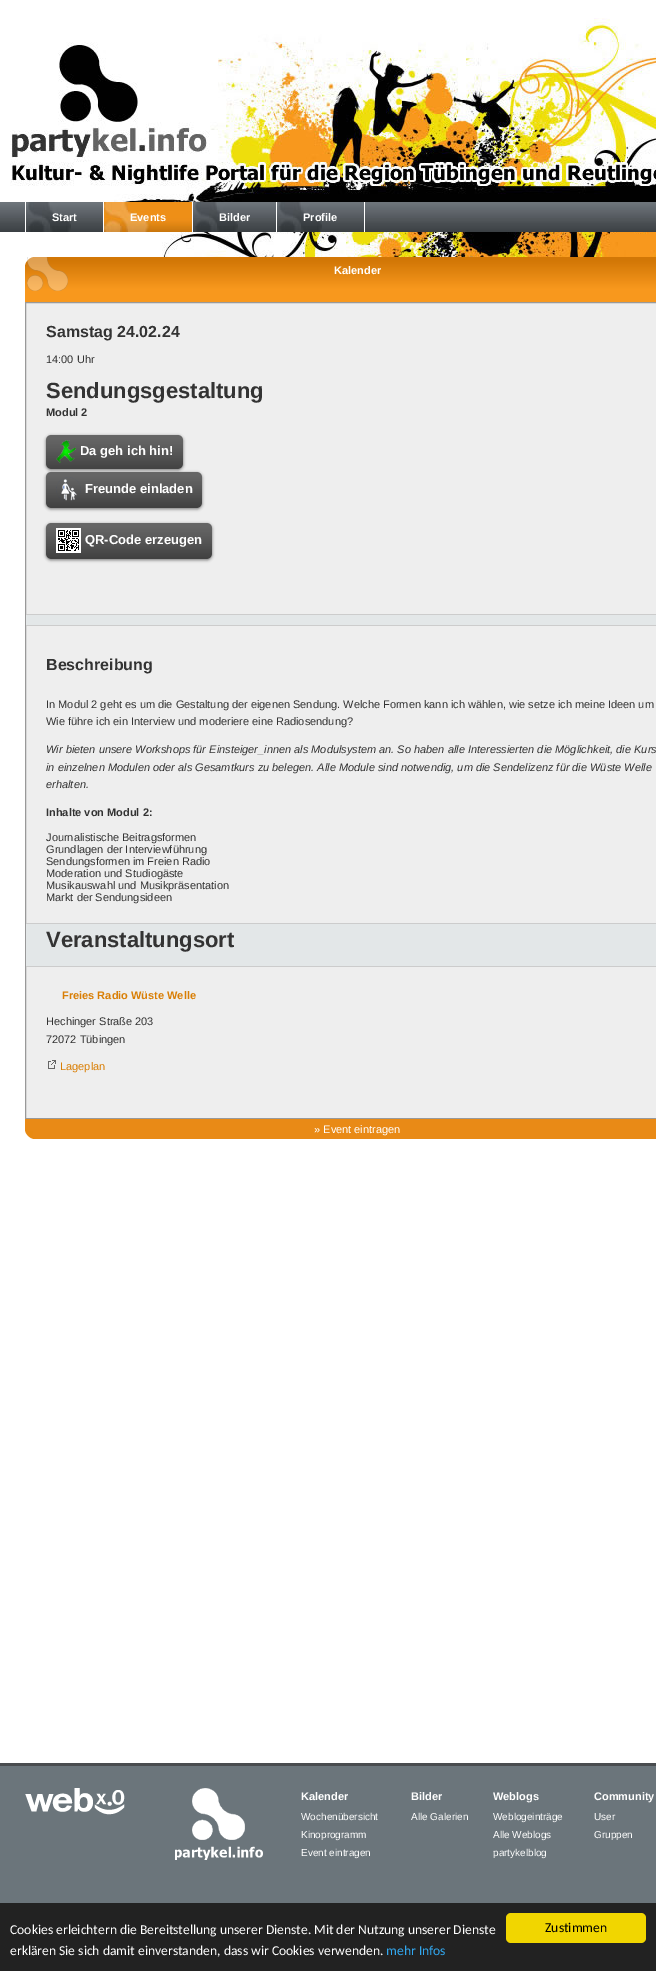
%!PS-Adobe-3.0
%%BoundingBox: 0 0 656 1971
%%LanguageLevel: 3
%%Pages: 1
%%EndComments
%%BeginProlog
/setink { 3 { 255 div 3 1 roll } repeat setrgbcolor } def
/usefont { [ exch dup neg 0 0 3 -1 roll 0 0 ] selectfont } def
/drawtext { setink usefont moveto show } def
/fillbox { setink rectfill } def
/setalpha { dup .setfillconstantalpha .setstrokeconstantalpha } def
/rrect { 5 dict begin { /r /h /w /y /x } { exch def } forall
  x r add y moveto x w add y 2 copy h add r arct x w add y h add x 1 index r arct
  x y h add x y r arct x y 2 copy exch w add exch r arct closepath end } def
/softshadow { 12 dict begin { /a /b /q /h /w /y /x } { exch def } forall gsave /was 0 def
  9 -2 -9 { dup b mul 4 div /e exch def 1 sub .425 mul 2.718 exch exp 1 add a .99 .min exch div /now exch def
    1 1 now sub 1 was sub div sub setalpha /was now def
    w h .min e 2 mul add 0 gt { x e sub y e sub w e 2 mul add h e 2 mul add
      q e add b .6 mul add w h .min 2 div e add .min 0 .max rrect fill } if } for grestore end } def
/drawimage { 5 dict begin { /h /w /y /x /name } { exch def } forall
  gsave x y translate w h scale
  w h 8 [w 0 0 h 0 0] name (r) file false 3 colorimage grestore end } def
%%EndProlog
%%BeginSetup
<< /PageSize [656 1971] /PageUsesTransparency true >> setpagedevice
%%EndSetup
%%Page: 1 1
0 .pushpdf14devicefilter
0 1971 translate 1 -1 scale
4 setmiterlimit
0 0 656 1971 255 255 255 fillbox
(assets/img1.rgb) 10 18 646 358 drawimage
(assets/img2.rgb) 0 202 656 30 drawimage
(assets/img3.rgb) 28 202 43 30 drawimage
25 202 1 30 255 255 255 fillbox
(Start) 52 221 /LiberationSans-Bold 11 255 255 255 drawtext
(assets/img4.rgb) 104 202 88 30 drawimage
192 202 1 30 255 255 255 fillbox
103 202 1 30 255 255 255 fillbox
(Events) 130 221 /LiberationSans-Bold 11 255 255 255 drawtext
(assets/img3.rgb) 195 202 43 30 drawimage
276 202 1 30 255 255 255 fillbox
(Bilder) 219 221 /LiberationSans-Bold 11 255 255 255 drawtext
(assets/img3.rgb) 279 202 43 30 drawimage
364 202 1 30 255 255 255 fillbox
(Profile) 303 221 /LiberationSans-Bold 11 255 255 255 drawtext
(assets/img5.rgb) 25 257 631 45 drawimage
(Kalender) 334 274 /LiberationSans-Bold 11 255 255 255 drawtext
238 238 238 setink
25.5 302.5 moveto 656.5 302.5 lineto 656.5 1118.5 lineto 25.5 1118.5 lineto closepath gsave fill grestore
153 153 153 setink
stroke
(Samstag 24.02.24) 46 337 /LiberationSans-Bold 16 51 51 51 drawtext
(14:00 Uhr) 46 363 /LiberationSans-Regular 11 51 51 51 drawtext
(Sendungsgestaltung) 46 398 /LiberationSans-Bold 22 51 51 51 drawtext
(Modul 2) 46 416 /LiberationSans-Bold 11 51 51 51 drawtext
0 0 0 setink
46 436 137 34 5 1.5 0.5 softshadow
51 51 51 setink
46 435 137 34 5 rrect fill
(assets/img6.rgb) 46 435 137 34 drawimage
(assets/img7.rgb) 56 440 20 23 drawimage
(Da geh ich hin!) 80 455 /LiberationSans-Bold 13 255 255 255 drawtext
0 0 0 setink
46 473 156 36 5 1.5 0.5 softshadow
51 51 51 setink
46 472 156 36 5 rrect fill
(assets/img8.rgb) 46 472 156 36 drawimage
(assets/img9.rgb) 56 477 25 24 drawimage
(Freunde einladen) 85 493 /LiberationSans-Bold 13 255 255 255 drawtext
0 0 0 setink
46 524 166 36 5 1.5 0.5 softshadow
51 51 51 setink
46 523 166 36 5 rrect fill
(assets/img10.rgb) 46 523 166 36 drawimage
(assets/img11.rgb) 56 528 25 25 drawimage
(QR-Code erzeugen) 85 544 /LiberationSans-Bold 13 255 255 255 drawtext
26 615 630 10 227 231 232 fillbox
26 614 630 1 204 204 204 fillbox
26 625 630 1 204 204 204 fillbox
(Beschreibung) 46 670 /LiberationSans-Bold 16 51 51 51 drawtext
(In Modul 2 geht es um die Gestaltung der eigenen Sendung. Welche Formen kann ich wählen, wie setze ich meine Ideen um) 46 708 /LiberationSans-Regular 11 51 51 51 drawtext
(Wie führe ich ein Interview und moderiere eine Radiosendung?) 46 725 /LiberationSans-Regular 11 51 51 51 drawtext
(Wir bieten unsere Workshops für Einsteiger_innen als Modulsystem an. So haben alle Interessierten die Möglichkeit, die Kurs) 46 753 /LiberationSans-Italic 11 51 51 51 drawtext
(in einzelnen Modulen oder als Gesamtkurs zu belegen. Alle Module sind notwendig, um die Sendelizenz für die Wüste Welle) 46 771 /LiberationSans-Italic 11 51 51 51 drawtext
(erhalten.) 46 788 /LiberationSans-Italic 11 51 51 51 drawtext
(Inhalte von Modul 2:) 46 816 /LiberationSans-Bold 11 51 51 51 drawtext
(Journalistische Beitragsformen) 46 841 /LiberationSans-Regular 11 51 51 51 drawtext
(Grundlagen der Interviewführung) 46 853 /LiberationSans-Regular 11 51 51 51 drawtext
(Sendungsformen im Freien Radio) 46 865 /LiberationSans-Regular 11 51 51 51 drawtext
(Moderation und Studiogäste) 46 877 /LiberationSans-Regular 11 51 51 51 drawtext
(Musikauswahl und Musikpräsentation) 46 889 /LiberationSans-Regular 11 51 51 51 drawtext
(Markt der Sendungsideen) 46 901 /LiberationSans-Regular 11 51 51 51 drawtext
26 924 630 42 227 231 232 fillbox
26 923 630 1 204 204 204 fillbox
26 966 630 1 204 204 204 fillbox
(Veranstaltungsort) 46 947 /LiberationSans-Bold 22 51 51 51 drawtext
(Freies Radio Wüste Welle) 62 999 /LiberationSans-Bold 11 217 126 4 drawtext
(Hechinger Straße 203) 46 1025 /LiberationSans-Regular 11 51 51 51 drawtext
(72072 Tübingen) 46 1043 /LiberationSans-Regular 11 51 51 51 drawtext
(assets/img12.rgb) 48 1060 8 9 drawimage
(Lageplan) 60 1070 /LiberationSans-Regular 11 217 126 4 drawtext
25 1119 631 20 233 138 22 fillbox
(assets/img13.rgb) 25 1131 8 8 drawimage
(» Event eintragen) 314 1133 /LiberationSans-Regular 11 255 255 255 drawtext
0 1766 656 137 107 117 123 fillbox
0 1763 656 3 73 76 79 fillbox
(assets/img14.rgb) 25 1788 100 27 drawimage
(assets/img15.rgb) 175 1788 88 72 drawimage
(Kalender) 301 1800 /LiberationSans-Bold 11 255 255 255 drawtext
(Wochenübersicht) 301 1820 /LiberationSans-Regular 10 255 255 255 drawtext
(Kinoprogramm) 301 1838 /LiberationSans-Regular 10 255 255 255 drawtext
(Event eintragen) 301 1856 /LiberationSans-Regular 10 255 255 255 drawtext
(Bilder) 411 1800 /LiberationSans-Bold 11 255 255 255 drawtext
(Alle Galerien) 411 1820 /LiberationSans-Regular 10 255 255 255 drawtext
(Weblogs) 493 1800 /LiberationSans-Bold 11 255 255 255 drawtext
(Weblogeinträge) 493 1820 /LiberationSans-Regular 10 255 255 255 drawtext
(Alle Weblogs) 493 1838 /LiberationSans-Regular 10 255 255 255 drawtext
(partykelblog) 493 1856 /LiberationSans-Regular 10 255 255 255 drawtext
(Community) 594 1800 /LiberationSans-Bold 11 255 255 255 drawtext
(User) 594 1820 /LiberationSans-Regular 10 255 255 255 drawtext
(Gruppen) 594 1838 /LiberationSans-Regular 10 255 255 255 drawtext
0 1903 656 68 34 34 34 fillbox
(Cookies erleichtern die Bereitstellung unserer Dienste. Mit der Nutzung unserer Dienste) 10 1934 /Carlito-Regular 13.6 255 255 255 drawtext
(erklären Sie sich damit einverstanden, dass wir Cookies verwenden.) 10 1955 /Carlito-Regular 13.6 255 255 255 drawtext
(mehr Infos) 386 1955 /Carlito-Regular 13.6 49 168 240 drawtext
241 214 0 setink
506 1913 140 30 5 rrect fill
(Zustimmen) 545 1932 /Carlito-Regular 13.6 0 0 0 drawtext
.poppdf14devicefilter showpage
%%EOF
